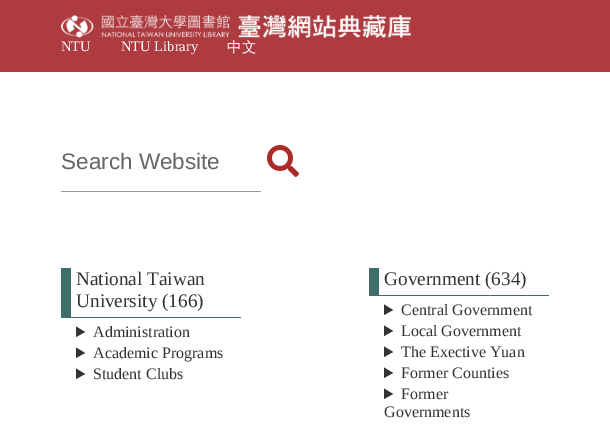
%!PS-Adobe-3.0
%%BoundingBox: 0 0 610 447
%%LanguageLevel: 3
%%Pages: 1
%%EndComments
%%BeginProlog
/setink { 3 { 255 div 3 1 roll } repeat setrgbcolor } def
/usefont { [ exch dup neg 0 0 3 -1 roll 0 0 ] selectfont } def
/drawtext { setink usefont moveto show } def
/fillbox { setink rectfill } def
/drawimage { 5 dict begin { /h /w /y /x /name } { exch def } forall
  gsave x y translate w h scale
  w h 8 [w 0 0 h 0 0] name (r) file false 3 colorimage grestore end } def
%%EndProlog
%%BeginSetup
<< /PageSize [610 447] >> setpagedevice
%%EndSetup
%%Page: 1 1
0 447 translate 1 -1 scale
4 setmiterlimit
0 0 610 447 255 255 255 fillbox
0 0 610 72 173 59 63 fillbox
(assets/img1.rgb) 61 15 350 23 drawimage
(NTU) 61 51 /LiberationSerif-Regular 14.5 255 255 255 drawtext
(NTU Library) 121 51 /LiberationSerif-Regular 14.5 255 255 255 drawtext
(中文) 227 52 /WenQuanYiZenHei-Medium 14.5 255 255 255 drawtext
61 191 200 1 153 153 153 fillbox
(Search Website) 61 169 /LiberationSans-Regular 22.5 102 102 102 drawtext
(assets/img2.rgb) 267 145 32 32 drawimage
71 317 170 1 62 110 108 fillbox
61 268 10 50 62 110 108 fillbox
(National Taiwan) 76 285 /LiberationSerif-Regular 19.25 51 51 51 drawtext
(University \(166\)) 76 307 /LiberationSerif-Regular 19.25 51 51 51 drawtext
76 326.5 moveto 85 332 lineto 76 337 lineto closepath fill
(Administration) 93 337 /LiberationSerif-Regular 16 51 51 51 drawtext
76 347.5 moveto 85 353 lineto 76 358 lineto closepath fill
(Academic Programs) 93 358 /LiberationSerif-Regular 16 51 51 51 drawtext
76 368.5 moveto 85 374 lineto 76 379 lineto closepath fill
(Student Clubs) 93 379 /LiberationSerif-Regular 16 51 51 51 drawtext
379 295 170 1 62 110 108 fillbox
369 268 10 28 62 110 108 fillbox
(Government \(634\)) 384 285 /LiberationSerif-Regular 19.25 51 51 51 drawtext
384 304.5 moveto 393 310 lineto 384 315 lineto closepath fill
(Central Government) 401 315 /LiberationSerif-Regular 16 51 51 51 drawtext
384 325.5 moveto 393 331 lineto 384 336 lineto closepath fill
(Local Government) 401 336 /LiberationSerif-Regular 16 51 51 51 drawtext
384 346.5 moveto 393 352 lineto 384 357 lineto closepath fill
(The Exective Yuan) 401 357 /LiberationSerif-Regular 16 51 51 51 drawtext
384 367.5 moveto 393 373 lineto 384 378 lineto closepath fill
(Former Counties) 401 378 /LiberationSerif-Regular 16 51 51 51 drawtext
384 388.5 moveto 393 394 lineto 384 399 lineto closepath fill
(Former) 401 399 /LiberationSerif-Regular 16 51 51 51 drawtext
(Governments) 384 417 /LiberationSerif-Regular 16 51 51 51 drawtext
showpage
%%EOF
